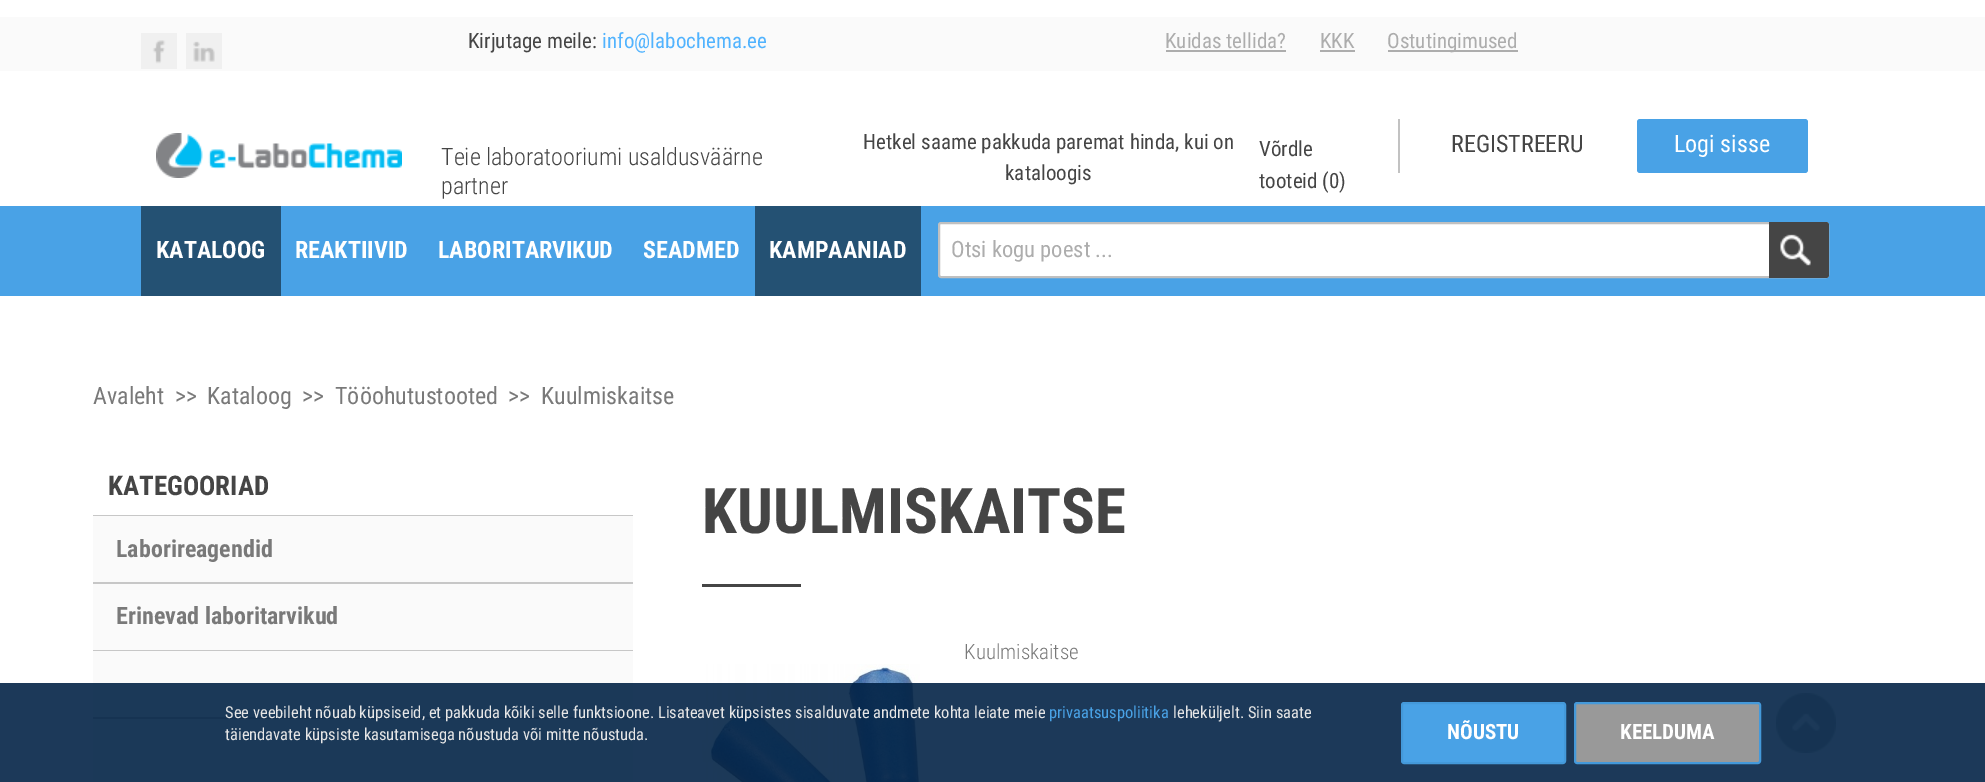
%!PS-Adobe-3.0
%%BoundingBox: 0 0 1985 782
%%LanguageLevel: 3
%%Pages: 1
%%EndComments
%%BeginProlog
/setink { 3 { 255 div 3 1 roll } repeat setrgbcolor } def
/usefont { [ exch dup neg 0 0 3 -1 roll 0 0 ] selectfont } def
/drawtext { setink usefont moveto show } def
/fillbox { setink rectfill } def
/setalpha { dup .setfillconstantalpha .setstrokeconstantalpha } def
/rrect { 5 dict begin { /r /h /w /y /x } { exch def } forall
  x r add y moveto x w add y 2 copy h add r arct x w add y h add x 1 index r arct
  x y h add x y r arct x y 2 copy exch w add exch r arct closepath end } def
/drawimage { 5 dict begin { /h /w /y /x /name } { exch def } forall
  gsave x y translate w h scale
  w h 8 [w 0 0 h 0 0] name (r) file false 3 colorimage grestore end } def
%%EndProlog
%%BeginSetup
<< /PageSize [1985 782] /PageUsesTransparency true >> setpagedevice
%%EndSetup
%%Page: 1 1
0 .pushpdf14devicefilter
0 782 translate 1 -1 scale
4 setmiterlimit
0 0 1985 782 255 255 255 fillbox
0 17 1985 54 250 250 250 fillbox
(assets/img1.rgb) 141 33 36 36 drawimage
(assets/img2.rgb) 186 33 36 36 drawimage
(Kirjutage meile:) 468 48 /RobotoCondensed-Regular 21 69 69 69 drawtext
(info@labochema.ee) 602 48 /RobotoCondensed-Regular 21 81 179 254 drawtext
(Kuidas tellida?) 1165 48 /RobotoCondensed-Regular 21 173 173 173 drawtext
1166 50 120 2 173 173 173 fillbox
(KKK) 1320 48 /RobotoCondensed-Regular 21 173 173 173 drawtext
1320 50 35 2 173 173 173 fillbox
1388 50 130 2 173 173 173 fillbox
(Ostutingimused) 1387 48 /RobotoCondensed-Regular 21 173 173 173 drawtext
(assets/img3.rgb) 1776 693 60 60 drawimage
(assets/img4.rgb) 156 133 246 45 drawimage
(Teie laboratooriumi usaldusväärne) 441 165 /RobotoCondensed-Light 24 69 69 69 drawtext
(partner) 441 194 /RobotoCondensed-Light 24 69 69 69 drawtext
(Hetkel saame pakkuda paremat hinda, kui on) 863 149 /RobotoCondensed-Regular 21 69 69 69 drawtext
(kataloogis) 1005 180 /RobotoCondensed-Regular 21 69 69 69 drawtext
(Võrdle) 1259 156 /RobotoCondensed-Regular 21 69 69 69 drawtext
(tooteid \(0\)) 1259 188 /RobotoCondensed-Regular 21 69 69 69 drawtext
1398 119 2 54 194 194 194 fillbox
(REGISTREERU) 1451 152 /RobotoCondensed-Regular 24 69 69 69 drawtext
73 162 230 setink
1637 119 171 54 3 rrect fill
(Logi sisse) 1674 152 /RobotoCondensed-Regular 24 255 255 255 drawtext
0 206 1985 90 73 162 230 fillbox
141 206 140 90 36 81 115 fillbox
(KATALOOG) 156 258 /RobotoCondensed-Bold 24 255 255 255 drawtext
(REAKTIIVID) 295 258 /RobotoCondensed-Bold 24 255 255 255 drawtext
(LABORITARVIKUD) 438 258 /RobotoCondensed-Bold 24 255 255 255 drawtext
(SEADMED) 643 258 /RobotoCondensed-Bold 24 255 255 255 drawtext
755 206 166 90 36 81 115 fillbox
(KAMPAANIAD) 769 258 /RobotoCondensed-Bold 24 255 255 255 drawtext
939 223 889 54 2 rrect gsave fill grestore
192 192 192 setink
2 setlinewidth
stroke
(Otsi kogu poest ...) 951 257 /RobotoCondensed-Regular 22.5 173 173 173 drawtext
69 69 69 setink
1769 222 moveto 1826 222 lineto 1827.5 222 1829 223.5 1829 225 curveto 1829 275 lineto 1829 276.5 1827.5 278 1826 278 curveto 1769 278 lineto closepath fill
(assets/img5.rgb) 1780 234 31 32 drawimage
(Avaleht) 93 404 /RobotoCondensed-Regular 24 121 121 121 drawtext
(>>) 175 404 /RobotoCondensed-Regular 24 121 121 121 drawtext
(Kataloog) 207 404 /RobotoCondensed-Regular 24 121 121 121 drawtext
(>>) 302 404 /RobotoCondensed-Regular 24 121 121 121 drawtext
(Tööohutustooted) 335 404 /RobotoCondensed-Regular 24 121 121 121 drawtext
(>>) 508 404 /RobotoCondensed-Regular 24 121 121 121 drawtext
(Kuulmiskaitse) 541 404 /RobotoCondensed-Regular 24 121 121 121 drawtext
(KATEGOORIAD) 108 495 /RobotoCondensed-Bold 27 69 69 69 drawtext
93 515 540 1 199 199 199 fillbox
93 516 540 66 250 250 250 fillbox
93 582 540 2 199 199 199 fillbox
(Laborireagendid) 116 557 /RobotoCondensed-Bold 24 121 121 121 drawtext
93 584 540 66 250 250 250 fillbox
93 650 540 1 199 199 199 fillbox
(Erinevad laboritarvikud) 116 624 /RobotoCondensed-Bold 24 121 121 121 drawtext
93 651 540 66 250 250 250 fillbox
93 717 540 2 199 199 199 fillbox
93 719 540 63 250 250 250 fillbox
(KUULMISKAITSE) 702 533 /RobotoCondensed-Bold 63 69 69 69 drawtext
702 584 99 3 69 69 69 fillbox
(Kuulmiskaitse) 964 659 /RobotoCondensed-Light 21 121 121 121 drawtext
(assets/img6.rgb) 702 664 218 118 drawimage
0.89 setalpha
0 683 1985 99 0 33 68 fillbox
1 setalpha
(See veebileht nõuab küpsiseid, et pakkuda kõiki selle funktsioone. Lisateavet küpsistes sisalduvate andmete kohta leiate meie) 225 718 /RobotoCondensed-Regular 16.5 230 230 230 drawtext
(privaatsuspoliitika) 1049 718 /RobotoCondensed-Regular 16.5 73 162 230 drawtext
(leheküljelt. Siin saate) 1173 718 /RobotoCondensed-Regular 16.5 230 230 230 drawtext
(täiendavate küpsiste kasutamisega nõustuda või mitte nõustuda.) 225 740 /RobotoCondensed-Regular 16.5 230 230 230 drawtext
73 162 230 setink
1402 703 163 60 2 rrect gsave fill grestore
68 153 218 setink
stroke
(NÕUSTU) 1447 739 /RobotoCondensed-Bold 21 255 255 255 drawtext
153 153 153 setink
1575 703 185 60 2 rrect gsave fill grestore
68 153 218 setink
stroke
(KEELDUMA) 1620 739 /RobotoCondensed-Bold 21 255 255 255 drawtext
.poppdf14devicefilter showpage
%%EOF
